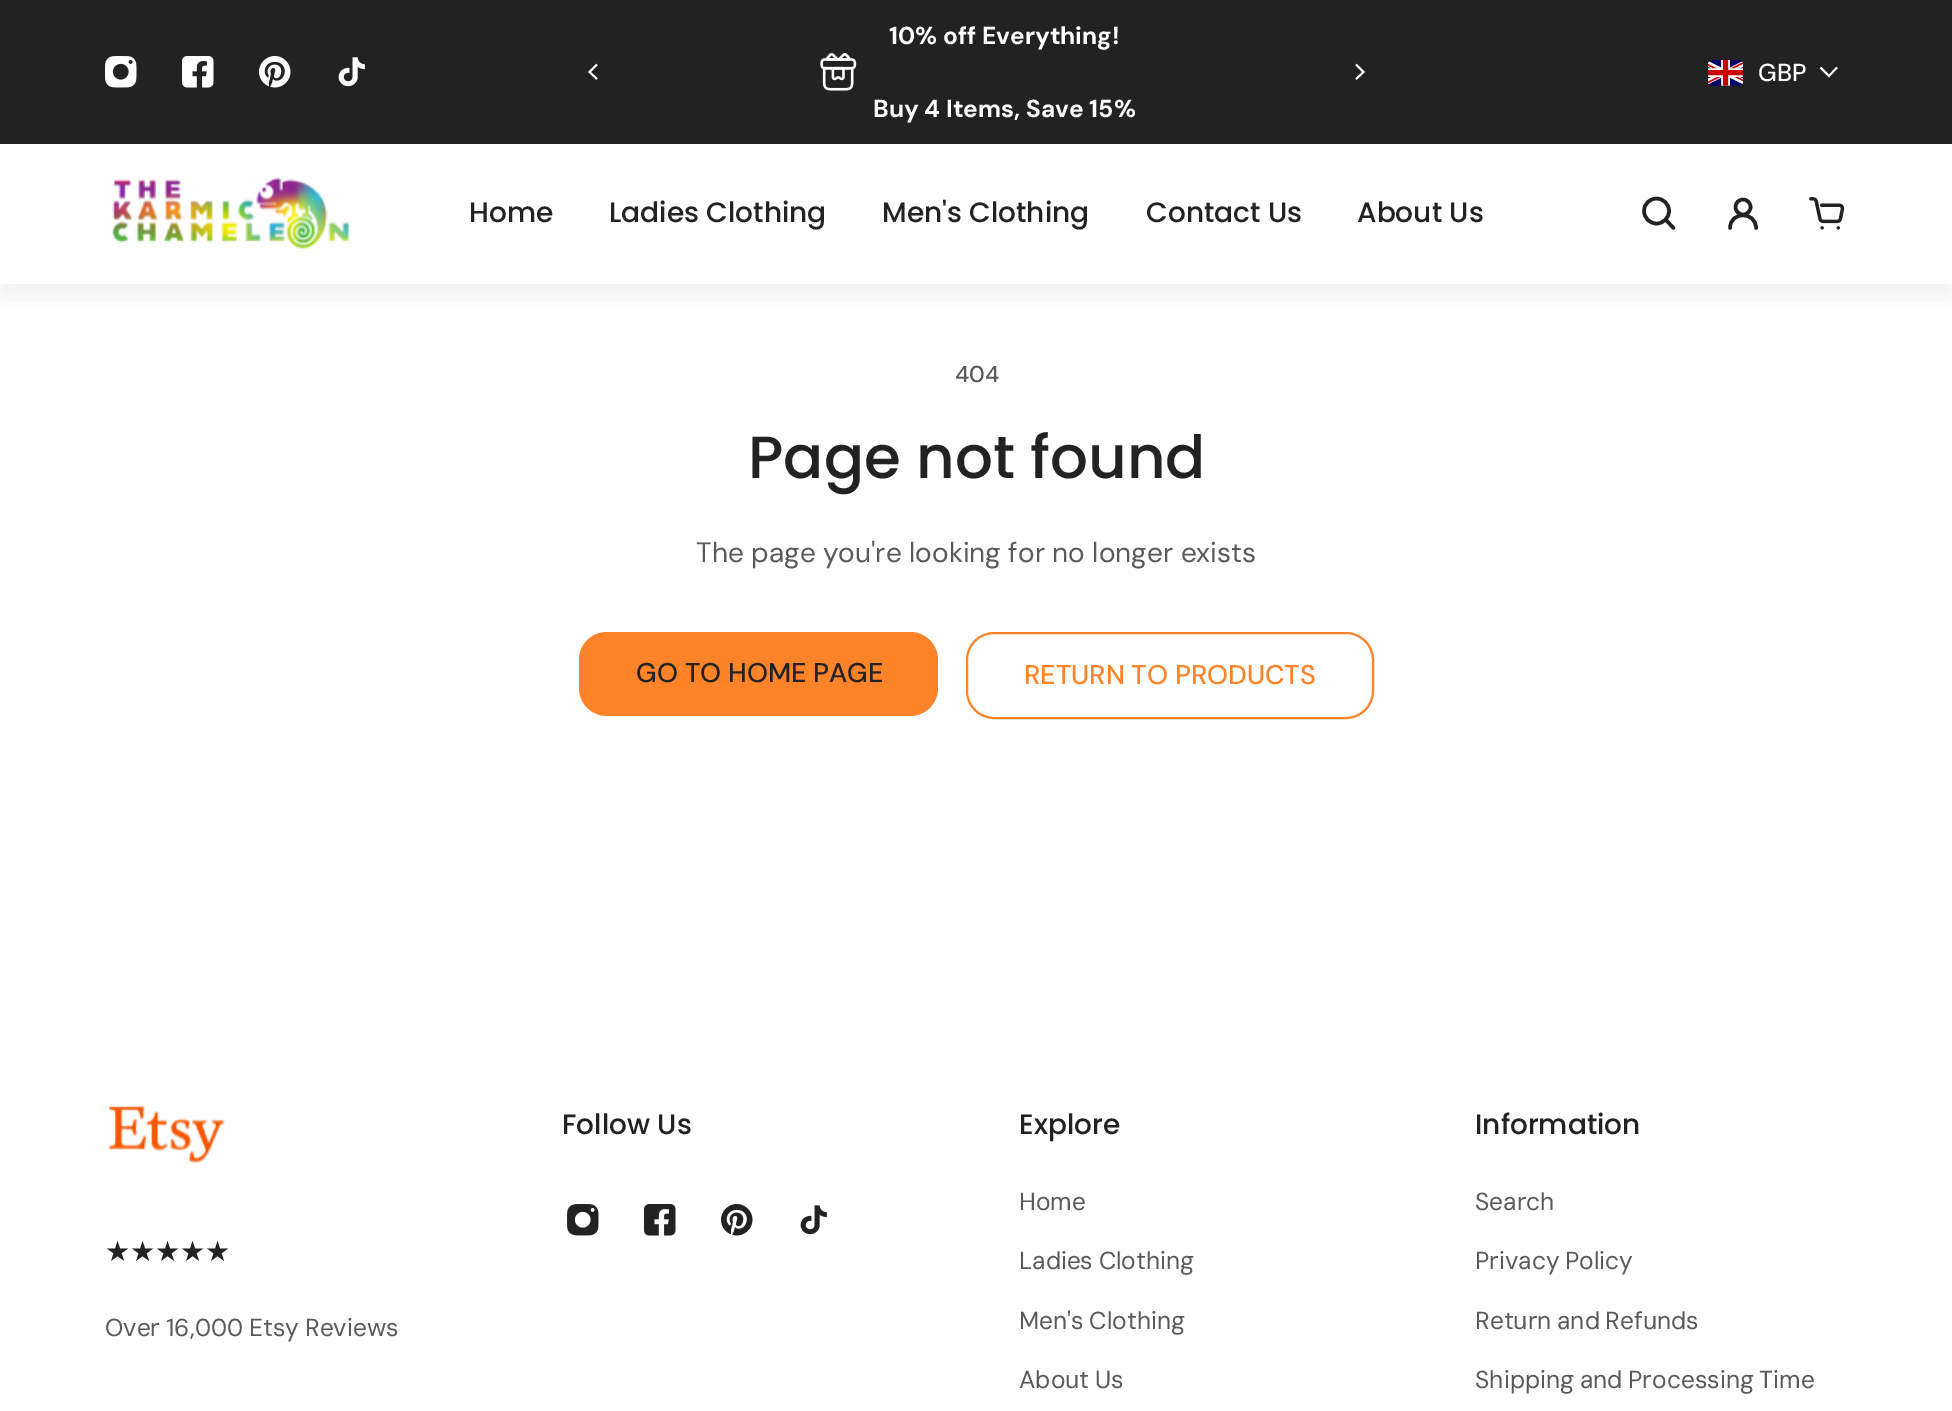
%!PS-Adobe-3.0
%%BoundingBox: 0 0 1952 1411
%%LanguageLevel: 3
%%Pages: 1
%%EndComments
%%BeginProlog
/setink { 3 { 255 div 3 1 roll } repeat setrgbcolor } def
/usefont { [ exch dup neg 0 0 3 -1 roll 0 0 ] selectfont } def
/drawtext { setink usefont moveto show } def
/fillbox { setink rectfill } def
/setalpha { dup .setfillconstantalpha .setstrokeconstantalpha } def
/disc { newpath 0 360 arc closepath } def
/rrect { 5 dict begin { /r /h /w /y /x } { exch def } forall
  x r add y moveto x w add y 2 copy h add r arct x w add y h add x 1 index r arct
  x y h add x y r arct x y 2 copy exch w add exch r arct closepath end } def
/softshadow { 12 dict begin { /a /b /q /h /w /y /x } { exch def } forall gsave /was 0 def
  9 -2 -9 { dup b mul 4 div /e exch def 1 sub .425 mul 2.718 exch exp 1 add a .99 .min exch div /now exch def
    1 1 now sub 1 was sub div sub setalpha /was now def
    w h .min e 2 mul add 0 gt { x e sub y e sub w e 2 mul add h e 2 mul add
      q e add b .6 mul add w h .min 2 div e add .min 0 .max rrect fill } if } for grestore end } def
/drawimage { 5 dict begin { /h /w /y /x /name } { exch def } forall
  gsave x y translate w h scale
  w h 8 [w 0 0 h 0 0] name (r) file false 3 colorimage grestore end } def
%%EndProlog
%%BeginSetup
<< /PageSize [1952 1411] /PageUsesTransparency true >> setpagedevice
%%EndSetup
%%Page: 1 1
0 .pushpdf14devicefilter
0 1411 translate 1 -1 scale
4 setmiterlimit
0 0 1952 1411 255 255 255 fillbox
gsave
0 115 moveto 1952 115 lineto 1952 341 lineto 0 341 lineto closepath 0 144 moveto 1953 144 lineto 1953 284 lineto 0 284 lineto closepath eoclip newpath
0 0 0 setink
0 158 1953 140 0 14 0.05 softshadow
grestore
0 0 1952 144 34 34 34 fillbox
(assets/img1.rgb) 105 56 32 32 drawimage
(assets/img2.rgb) 182 56 32 32 drawimage
(assets/img3.rgb) 259 56 32 32 drawimage
(assets/img4.rgb) 338 57 27 30 drawimage
255 255 255 setink
1.8 setlinewidth
597 64.5 moveto 589.5 72 lineto 597 79 lineto stroke
(assets/img5.rgb) 820 53 37 38 drawimage
(10% off Everything!) 889 44 /DMSans-Bold 24.5 255 255 255 drawtext
(Buy 4 Items, Save 15%) 873 117 /DMSans-Bold 24.5 255 255 255 drawtext
1356 64.5 moveto 1363.5 72 lineto 1356 79 lineto stroke
(assets/img6.rgb) 1708 60 35 26 drawimage
(GBP) 1758 81 /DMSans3-Medium 24.5 255 255 255 drawtext
1837 67.5 moveto 1829 76 lineto 1820.5 67.5 lineto stroke
35 144 1883 140 28 rrect fill
(assets/img7.rgb) 112 177 238 72 drawimage
(Home) 469 222 /Poppins-Medium 28 34 34 34 drawtext
(Ladies Clothing) 609 222 /Poppins-Medium 28 34 34 34 drawtext
(Men's Clothing) 882 222 /Poppins-Medium 28 34 34 34 drawtext
(Contact Us) 1146 222 /Poppins-Medium 28 34 34 34 drawtext
(About Us) 1357 222 /Poppins-Medium 28 34 34 34 drawtext
3.5 setlinewidth
1656.5 211 12.5 disc stroke
1 setlinecap
1 setlinejoin
1666 220 moveto 1673.5 228 lineto stroke
0 setlinecap
0 setlinejoin
1743 207 7.5 disc stroke
1 setlinecap
1 setlinejoin
1756 228 moveto 1756 211 1730 211 1730 228 curveto stroke
(assets/img8.rgb) 1809 197 36 33 drawimage
(404) 955 382 /DMSans-Medium 23 89 89 89 drawtext
(Page not found) 748 478 /Poppins-Medium 59.5 34 34 34 drawtext
(The page you're looking for no longer exists) 696 562 /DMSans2-Regular 28 89 89 89 drawtext
255 131 41 setink
579 632 359 84 28 rrect fill
(GO TO HOME PAGE) 636 682 /DMSans2-Medium 27 34 34 34 drawtext
255 131 41 setink
2 setlinewidth
0 setlinecap
0 setlinejoin
967 633 406 85 27 rrect stroke
(RETURN TO PRODUCTS) 1024 684 /DMSans2-Medium 27 255 131 41 drawtext
(assets/img9.rgb) 108 1105 117 58 drawimage
(★★★★★) 105 1261 /DejaVuSans-Regular 28 34 34 34 drawtext
/DMSans-Regular 24.5 usefont
89 89 89 setink
105 1336 moveto -0.5 0 32 (Over 16,000 Etsy Reviews) widthshow
(Follow Us) 562 1134 /Poppins-Medium 28 34 34 34 drawtext
(assets/img10.rgb) 567 1204 32 32 drawimage
(assets/img11.rgb) 644 1204 32 32 drawimage
(assets/img12.rgb) 721 1204 32 32 drawimage
(assets/img13.rgb) 800 1205 27 30 drawimage
(Explore) 1019 1134 /Poppins-Medium 28 34 34 34 drawtext
(Home) 1019 1210 /DMSans-Regular 24.5 89 89 89 drawtext
1019 1269 moveto -1 0 32 (Ladies Clothing) widthshow
1019 1329 moveto -1 0 32 (Men's Clothing) widthshow
1019 1388 moveto -1 0 32 (About Us) widthshow
(Information) 1475 1134 /Poppins-Medium 28 34 34 34 drawtext
(Search) 1475 1210 /DMSans-Regular 24.5 89 89 89 drawtext
1475 1269 moveto -1 0 32 (Privacy Policy) widthshow
1475 1329 moveto -1 0 32 (Return and Refunds) widthshow
1475 1388 moveto -1 0 32 (Shipping and Processing Time) widthshow
.poppdf14devicefilter showpage
%%EOF
